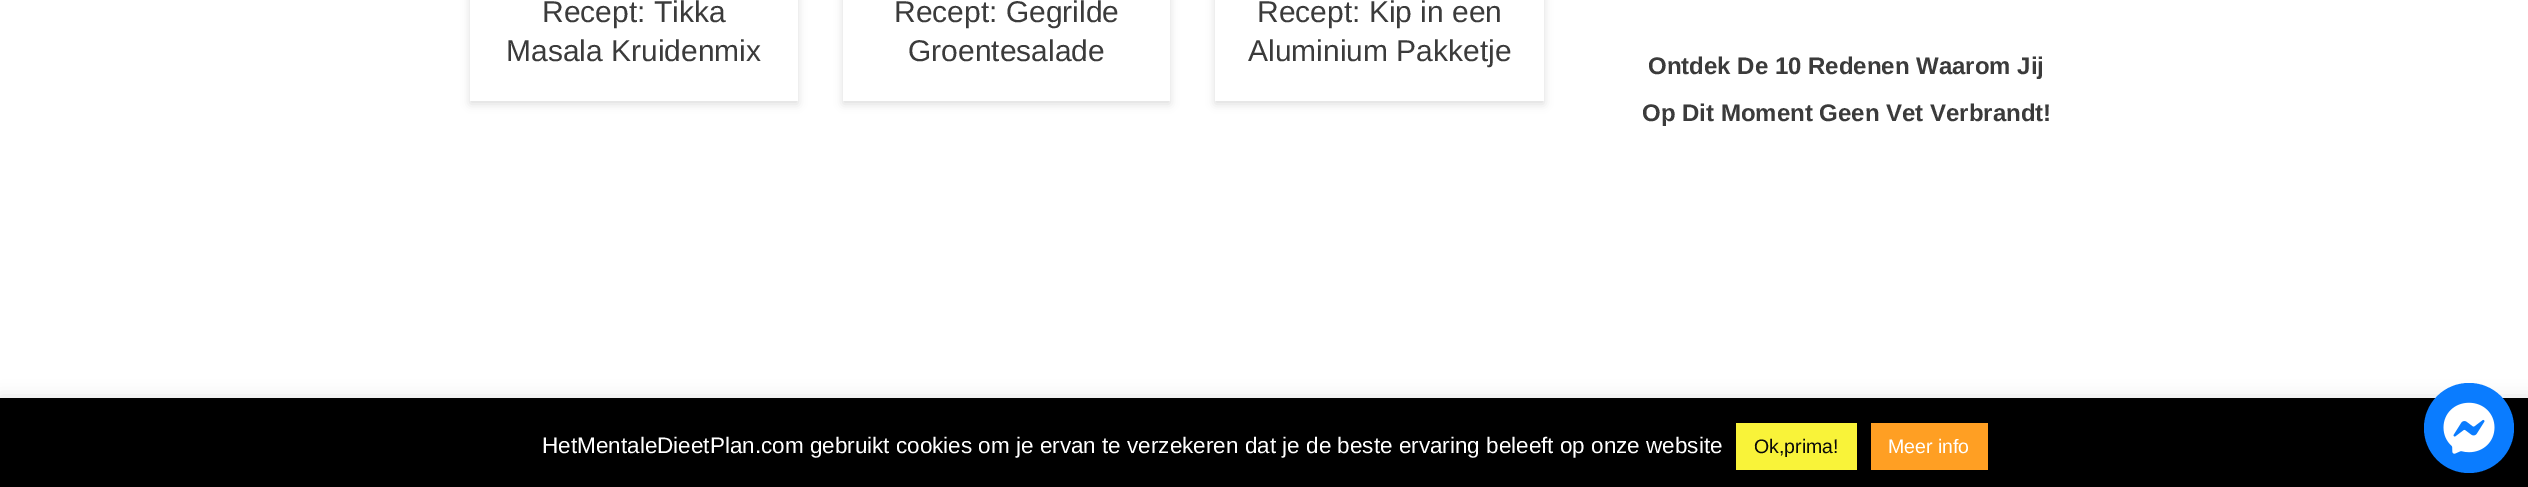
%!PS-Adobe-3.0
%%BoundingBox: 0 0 2528 487
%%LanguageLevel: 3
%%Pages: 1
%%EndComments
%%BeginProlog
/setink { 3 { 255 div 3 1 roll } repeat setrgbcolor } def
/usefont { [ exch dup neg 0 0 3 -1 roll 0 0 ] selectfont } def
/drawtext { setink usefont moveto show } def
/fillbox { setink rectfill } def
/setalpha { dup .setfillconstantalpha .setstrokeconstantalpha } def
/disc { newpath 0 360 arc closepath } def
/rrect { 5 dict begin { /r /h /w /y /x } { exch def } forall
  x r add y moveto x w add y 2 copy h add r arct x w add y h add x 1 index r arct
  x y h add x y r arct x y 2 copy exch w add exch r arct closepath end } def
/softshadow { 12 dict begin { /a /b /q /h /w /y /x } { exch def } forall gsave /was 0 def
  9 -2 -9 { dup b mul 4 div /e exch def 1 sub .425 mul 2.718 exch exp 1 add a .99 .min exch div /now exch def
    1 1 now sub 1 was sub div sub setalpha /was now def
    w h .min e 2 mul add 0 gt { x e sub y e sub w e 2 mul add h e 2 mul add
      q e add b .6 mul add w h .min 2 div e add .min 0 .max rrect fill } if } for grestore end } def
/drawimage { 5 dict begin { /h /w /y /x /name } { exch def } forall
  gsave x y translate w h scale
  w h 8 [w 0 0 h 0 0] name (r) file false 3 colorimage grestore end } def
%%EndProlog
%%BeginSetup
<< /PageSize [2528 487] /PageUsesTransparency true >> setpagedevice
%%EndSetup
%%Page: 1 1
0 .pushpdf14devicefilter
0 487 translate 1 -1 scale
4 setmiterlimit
0 0 2528 487 255 255 255 fillbox
gsave
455 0 moveto 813 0 lineto 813 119 lineto 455 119 lineto closepath 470 -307 moveto 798 -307 lineto 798 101 lineto 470 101 lineto closepath eoclip newpath
0 0 0 setink
470 -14 328 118 0 4.5 0.14 softshadow
grestore
(Recept: Tikka) 542 22 /LiberationSans-Regular 30 59 59 59 drawtext
(Masala Kruidenmix) 506 61 /LiberationSans-Regular 30 59 59 59 drawtext
gsave
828 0 moveto 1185 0 lineto 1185 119 lineto 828 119 lineto closepath 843 -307 moveto 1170 -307 lineto 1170 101 lineto 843 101 lineto closepath eoclip newpath
0 0 0 setink
843 -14 327 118 0 4.5 0.14 softshadow
grestore
(Recept: Gegrilde) 894 22 /LiberationSans-Regular 30 59 59 59 drawtext
(Groentesalade) 908 61 /LiberationSans-Regular 30 59 59 59 drawtext
gsave
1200 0 moveto 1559 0 lineto 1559 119 lineto 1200 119 lineto closepath 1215 -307 moveto 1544 -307 lineto 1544 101 lineto 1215 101 lineto closepath eoclip newpath
0 0 0 setink
1215 -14 329 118 0 4.5 0.14 softshadow
grestore
(Recept: Kip in een) 1257 22 /LiberationSans-Regular 30 59 59 59 drawtext
(Aluminium Pakketje) 1248 61 /LiberationSans-Regular 30 59 59 59 drawtext
(Ontdek De 10 Redenen Waarom Jij) 1648 74 /LiberationSans-Bold 24 59 59 59 drawtext
(Op Dit Moment Geen Vet Verbrandt!) 1642 121 /LiberationSans-Bold 24 59 59 59 drawtext
172 171 171 setink
0 396 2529 90 0 7.5 0.3 softshadow
0 398 2528 89 0 0 0 fillbox
(HetMentaleDieetPlan.com gebruikt cookies om je ervan te verzekeren dat je de beste ervaring beleeft op onze website) 542 453 /LiberationSans-Regular 22.5 255 255 255 drawtext
1736 423 121 47 249 243 57 fillbox
(Ok,prima!) 1754 453 /LiberationSans-Regular 19.5 10 10 10 drawtext
1871 423 117 47 255 159 35 fillbox
(Meer info) 1888 453 /LiberationSans-Regular 19.5 255 255 255 drawtext
10 124 255 setink
2469 428 45 disc fill
(assets/img1.rgb) 2443 402 52 52 drawimage
.poppdf14devicefilter showpage
%%EOF
